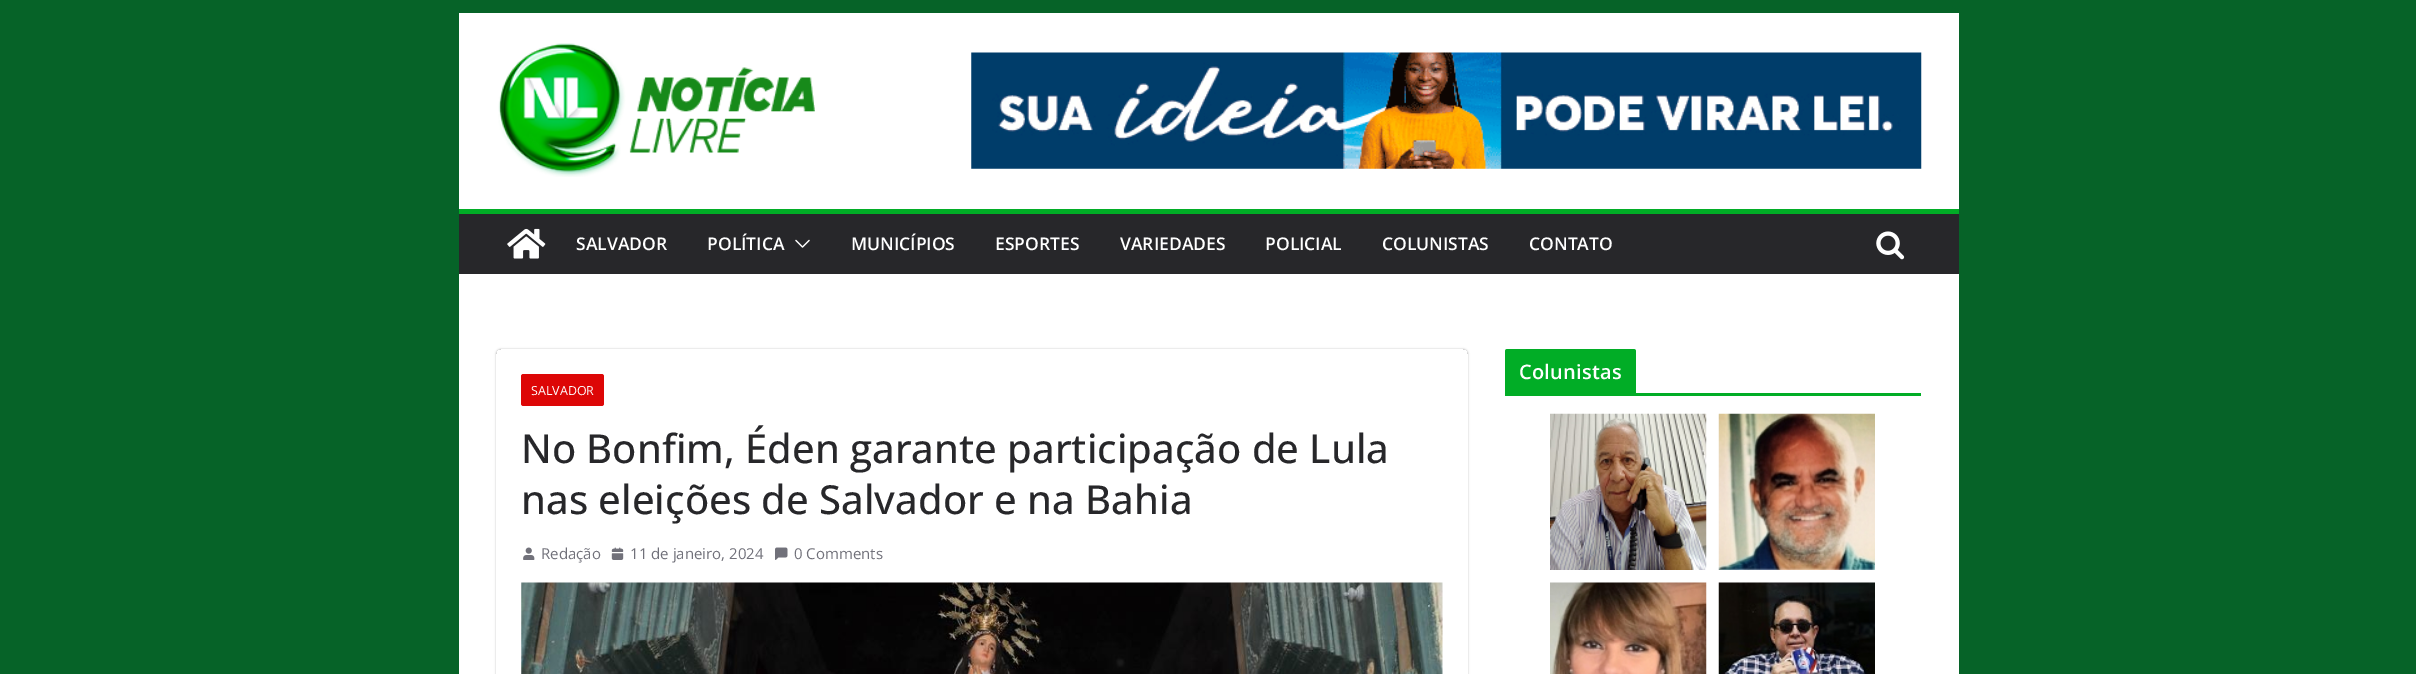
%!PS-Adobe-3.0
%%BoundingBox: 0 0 2416 674
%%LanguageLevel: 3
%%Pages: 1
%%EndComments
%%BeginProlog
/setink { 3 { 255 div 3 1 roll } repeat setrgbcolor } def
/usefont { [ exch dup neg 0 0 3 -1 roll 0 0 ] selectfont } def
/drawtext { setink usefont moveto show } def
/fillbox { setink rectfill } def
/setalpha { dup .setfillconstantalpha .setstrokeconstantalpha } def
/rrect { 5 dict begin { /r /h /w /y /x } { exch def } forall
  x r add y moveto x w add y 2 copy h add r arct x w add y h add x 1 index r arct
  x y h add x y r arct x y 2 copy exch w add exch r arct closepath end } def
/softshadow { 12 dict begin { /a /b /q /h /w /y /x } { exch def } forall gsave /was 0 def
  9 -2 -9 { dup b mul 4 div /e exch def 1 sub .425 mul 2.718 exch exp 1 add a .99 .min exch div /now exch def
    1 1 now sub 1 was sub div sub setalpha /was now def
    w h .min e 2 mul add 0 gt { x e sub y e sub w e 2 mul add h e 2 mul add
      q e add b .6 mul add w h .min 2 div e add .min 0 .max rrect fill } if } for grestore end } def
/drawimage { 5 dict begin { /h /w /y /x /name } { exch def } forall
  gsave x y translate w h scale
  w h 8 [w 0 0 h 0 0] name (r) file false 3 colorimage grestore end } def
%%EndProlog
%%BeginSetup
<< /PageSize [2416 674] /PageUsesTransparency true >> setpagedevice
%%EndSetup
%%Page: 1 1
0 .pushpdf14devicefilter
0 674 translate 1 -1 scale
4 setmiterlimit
0 0 2416 674 6 99 40 fillbox
459 13 1500 196 255 255 255 fillbox
(assets/img1.rgb) 498 43 317 134 drawimage
(assets/img2.rgb) 971 52 951 117 drawimage
459 214 1500 60 39 39 42 fillbox
459 209 1500 5 1 173 38 fillbox
(assets/img3.rgb) 507 228 39 31 drawimage
(SALVADOR) 576 250 /OpenSans-SemiBold 17.5 255 255 255 drawtext
(POLÍTICA) 707 250 /OpenSans-SemiBold 17.5 255 255 255 drawtext
(assets/img4.rgb) 795 239 15 9 drawimage
(MUNICÍPIOS) 851 250 /OpenSans-SemiBold 17.5 255 255 255 drawtext
(ESPORTES) 995 250 /OpenSans-SemiBold 17.5 255 255 255 drawtext
(VARIEDADES) 1120 250 /OpenSans-SemiBold 17.5 255 255 255 drawtext
(POLICIAL) 1265 250 /OpenSans-SemiBold 17.5 255 255 255 drawtext
(COLUNISTAS) 1382 250 /OpenSans-SemiBold 17.5 255 255 255 drawtext
(CONTATO) 1529 250 /OpenSans-SemiBold 17.5 255 255 255 drawtext
(assets/img5.rgb) 1876 231 29 29 drawimage
459 274 1500 400 255 255 255 fillbox
1505 393 416 3 1 173 38 fillbox
1507.5 349 moveto 1633.5 349 lineto 1635 349 1636 350 1636 351.5 curveto 1636 393 lineto 1505 393 lineto 1505 351.5 lineto 1505 350 1506 349 1507.5 349 curveto closepath fill
/OpenSans-SemiBold 20 usefont
255 255 255 setink
1519 379 moveto 0.25 0 (Colunistas) ashow
(assets/img6.rgb) 1550 413 157 157 drawimage
(assets/img7.rgb) 1718 413 157 157 drawimage
(assets/img8.rgb) 1550 582 157 92 drawimage
(assets/img9.rgb) 1718 582 157 92 drawimage
gsave
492 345 moveto 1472 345 lineto 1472 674 lineto 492 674 lineto closepath 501 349 moveto 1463 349 lineto 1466 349 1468 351 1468 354 curveto 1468 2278 lineto 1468 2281 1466 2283 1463 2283 curveto 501 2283 lineto 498 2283 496 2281 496 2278 curveto 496 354 lineto 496 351 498 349 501 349 curveto closepath eoclip newpath
0 0 0 setink
496 349 972 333 5 1 0.24 softshadow
grestore
221 6 6 setink
521 374 83 32 2.5 rrect fill
(SALVADOR) 531 395 /OpenSans-Regular 12.5 255 255 255 drawtext
(No Bonfim, Éden garante participação de Lula) 521 463 /OpenSans-Medium 40 39 39 42 drawtext
(nas eleições de Salvador e na Bahia) 521 514 /OpenSans-Medium 40 39 39 42 drawtext
(assets/img10.rgb) 523 547 12 13 drawimage
(Redação) 541 559 /OpenSans-Regular 15 113 113 122 drawtext
(assets/img11.rgb) 611 547 13 13 drawimage
(11 de janeiro, 2024) 630 559 /OpenSans-Regular 15 113 113 122 drawtext
(assets/img12.rgb) 775 547 13 13 drawimage
(0 Comments) 794 559 /OpenSans-Regular 15 113 113 122 drawtext
(assets/img13.rgb) 521 582 922 92 drawimage
.poppdf14devicefilter showpage
%%EOF
